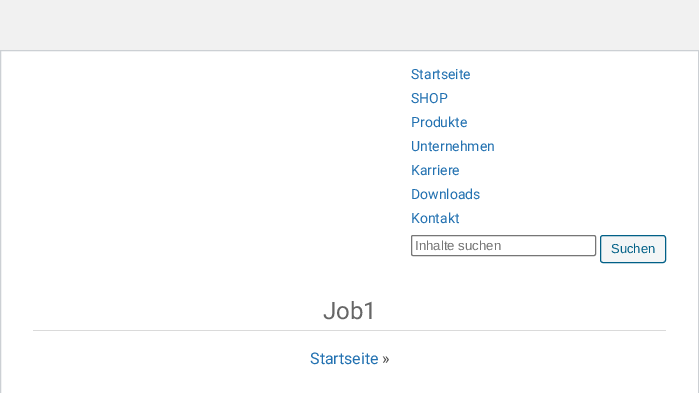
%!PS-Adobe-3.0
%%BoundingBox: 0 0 699 393
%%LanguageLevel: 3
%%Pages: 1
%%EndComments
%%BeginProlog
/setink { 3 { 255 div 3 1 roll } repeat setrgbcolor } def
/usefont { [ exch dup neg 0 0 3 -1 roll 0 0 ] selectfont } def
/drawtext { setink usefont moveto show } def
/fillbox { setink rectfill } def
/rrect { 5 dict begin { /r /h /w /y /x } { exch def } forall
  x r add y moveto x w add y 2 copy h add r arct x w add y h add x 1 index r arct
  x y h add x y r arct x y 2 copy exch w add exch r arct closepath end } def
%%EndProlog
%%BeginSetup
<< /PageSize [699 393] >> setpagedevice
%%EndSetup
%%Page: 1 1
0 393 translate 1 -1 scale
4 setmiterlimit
0 0 699 393 241 241 241 fillbox
255 255 255 setink
0.5 50.5 moveto 698.5 50.5 lineto 698.5 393.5 lineto 0.5 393.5 lineto closepath gsave fill grestore
204 208 212 setink
stroke
(Startseite) 411 79 /Roboto-Regular 14 34 113 177 drawtext
(SHOP) 411 103 /Roboto-Regular 14 34 113 177 drawtext
(Produkte) 411 127 /Roboto-Regular 14 34 113 177 drawtext
(Unternehmen) 411 151 /Roboto-Regular 14 34 113 177 drawtext
(Karriere) 411 175 /Roboto-Regular 14 34 113 177 drawtext
(Downloads) 411 199 /Roboto-Regular 14 34 113 177 drawtext
(Kontakt) 411 223 /Roboto-Regular 14 34 113 177 drawtext
118 118 118 setink
411.5 235.5 184 20 1.5 rrect stroke
(Inhalte suchen) 415 250 /LiberationSans-Regular 13.25 117 117 117 drawtext
243 245 246 setink
600.5 235.5 65 27 2.5 rrect gsave fill grestore
1 96 135 setink
stroke
(Suchen) 611 253 /LiberationSans-Regular 13 1 96 135 drawtext
33 330 633 1 218 218 218 fillbox
(Job1) 323 319 /Roboto-Regular 24 102 102 102 drawtext
(Startseite) 310 364 /Roboto-Regular 16 34 113 177 drawtext
(») 382 364 /Roboto-Regular 16 68 68 68 drawtext
showpage
%%EOF
